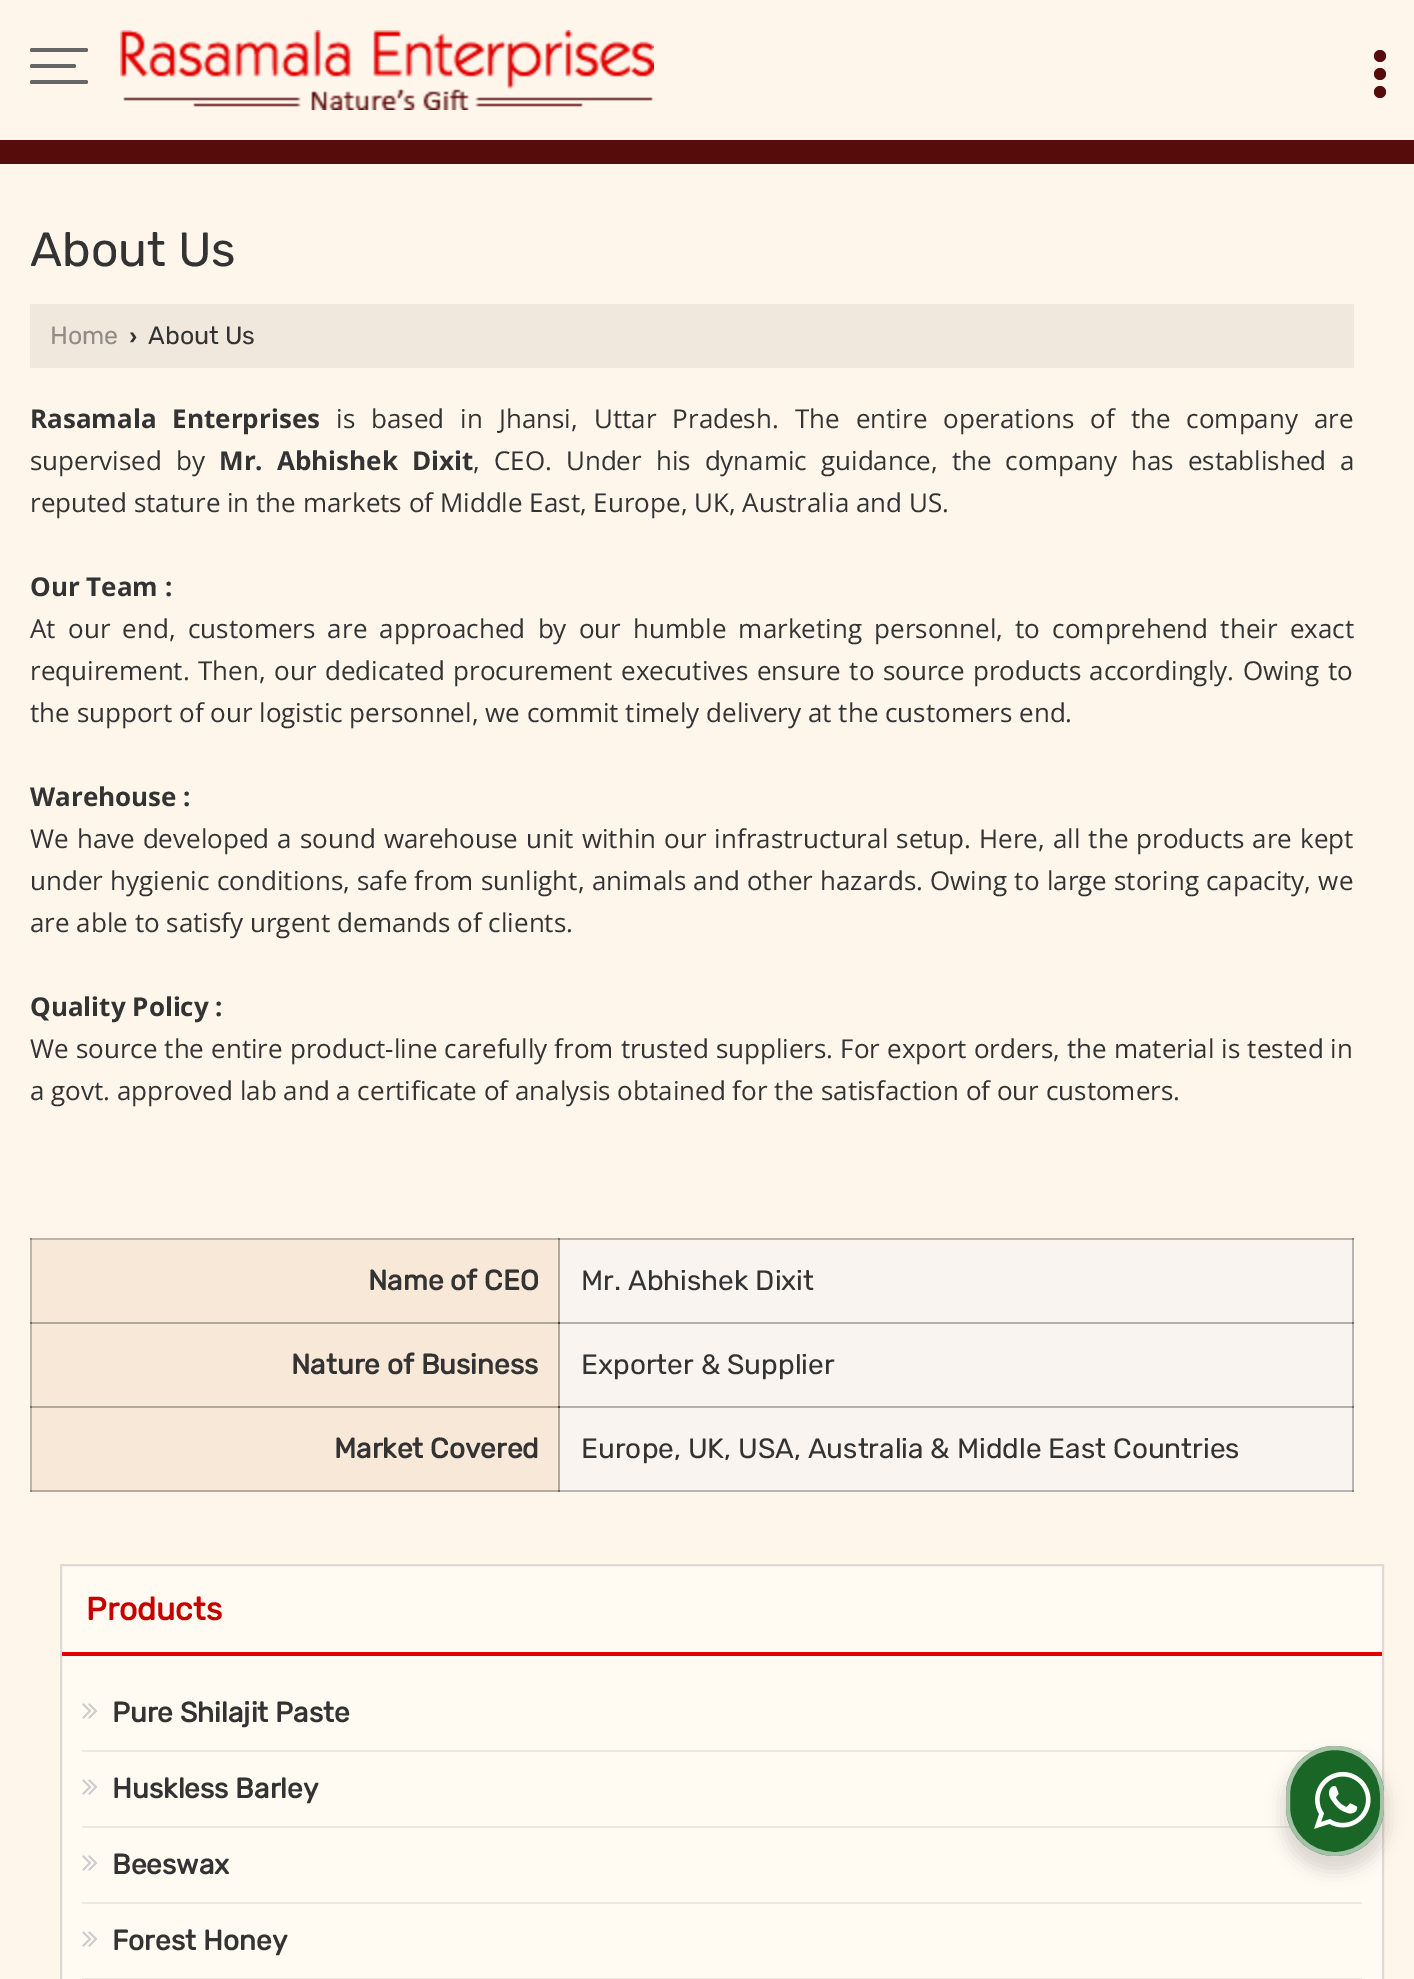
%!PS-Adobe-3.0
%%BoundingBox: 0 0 1414 1979
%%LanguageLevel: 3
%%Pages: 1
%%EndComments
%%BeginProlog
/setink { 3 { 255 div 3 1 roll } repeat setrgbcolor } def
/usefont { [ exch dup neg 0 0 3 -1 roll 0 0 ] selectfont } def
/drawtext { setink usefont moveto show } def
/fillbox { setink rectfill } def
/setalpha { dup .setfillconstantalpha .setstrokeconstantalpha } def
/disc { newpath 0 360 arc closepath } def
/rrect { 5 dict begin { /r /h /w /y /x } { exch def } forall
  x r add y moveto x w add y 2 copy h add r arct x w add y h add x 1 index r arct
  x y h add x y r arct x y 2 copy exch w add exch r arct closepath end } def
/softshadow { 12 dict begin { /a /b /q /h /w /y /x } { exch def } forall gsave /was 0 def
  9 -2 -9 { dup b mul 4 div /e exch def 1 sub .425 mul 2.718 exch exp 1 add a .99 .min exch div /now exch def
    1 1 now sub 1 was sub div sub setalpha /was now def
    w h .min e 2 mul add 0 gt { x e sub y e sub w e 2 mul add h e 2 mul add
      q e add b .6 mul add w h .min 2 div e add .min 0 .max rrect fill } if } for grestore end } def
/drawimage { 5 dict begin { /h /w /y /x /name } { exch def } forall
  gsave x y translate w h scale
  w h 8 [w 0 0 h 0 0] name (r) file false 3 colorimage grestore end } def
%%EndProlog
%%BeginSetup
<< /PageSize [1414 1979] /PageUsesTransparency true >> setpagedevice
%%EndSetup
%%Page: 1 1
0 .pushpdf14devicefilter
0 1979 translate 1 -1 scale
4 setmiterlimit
0 0 1414 1979 255 246 235 fillbox
30 1238 2 254 189 182 173 fillbox
30 1322 2 2 116 112 106 fillbox
30 1406 2 2 116 112 106 fillbox
30 1490 2 2 139 134 128 fillbox
(assets/img1.rgb) 120 30 534 80 drawimage
87 12 12 setink
1380 74 6 disc fill
1380 56 6 disc fill
1380 92 6 disc fill
0 140 1414 24 87 12 12 fillbox
102 102 102 setink
30 48 58 4 2 rrect fill
30 64 46 4 2 rrect fill
30 80 58 4 2 rrect fill
(About Us) 30 266 /Rubik-Light 48 51 51 51 drawtext
30 304 1324 64 240 231 221 fillbox
(Home) 50 344 /Rubik-Light 25 144 139 133 drawtext
(›) 129 344 /LiberationSans-Bold 25 51 51 51 drawtext
(About Us) 148 344 /Rubik-Light 25 51 51 51 drawtext
/OpenSans-Bold 26 usefont
30 428 moveto 9.25 0 32 (Rasamala Enterprises) widthshow
/OpenSans-Regular 26 usefont
336 428 moveto 9.25 0 32 (is based in Jhansi, Uttar Pradesh. The entire operations of the company are) widthshow
30 470 moveto 7.25 0 32 (supervised by) widthshow
/OpenSans-Bold 26 usefont
219 470 moveto 7.25 0 32 (Mr. Abhishek Dixit) widthshow
/OpenSans-Regular 26 usefont
473 470 moveto 7.25 0 32 (, CEO. Under his dynamic guidance, the company has established a) widthshow
(reputed stature in the markets of Middle East, Europe, UK, Australia and US.) 30 512 /OpenSans-Regular 26 51 51 51 drawtext
(Our Team :) 30 596 /OpenSans-Bold 26 51 51 51 drawtext
/OpenSans-Regular 26 usefont
30 638 moveto 5.5 0 32 (At our end, customers are approached by our humble marketing personnel, to comprehend their exact) widthshow
30 680 moveto 1.75 0 32 (requirement. Then, our dedicated procurement executives ensure to source products accordingly. Owing to) widthshow
(the support of our logistic personnel, we commit timely delivery at the customers end.) 30 722 /OpenSans-Regular 26 51 51 51 drawtext
(Warehouse :) 30 806 /OpenSans-Bold 26 51 51 51 drawtext
/OpenSans-Regular 26 usefont
30 848 moveto 1.25 0 32 (We have developed a sound warehouse unit within our infrastructural setup. Here, all the products are kept) widthshow
30 890 moveto 0.5 0 32 (under hygienic conditions, safe from sunlight, animals and other hazards. Owing to large storing capacity, we) widthshow
(are able to satisfy urgent demands of clients.) 30 932 /OpenSans-Regular 26 51 51 51 drawtext
(Quality Policy :) 30 1016 /OpenSans-Bold 26 51 51 51 drawtext
/OpenSans-Regular 26 usefont
30 1058 moveto 0.25 0 32 (We source the entire product-line carefully from trusted suppliers. For export orders, the material is tested in) widthshow
(a govt. approved lab and a certificate of analysis obtained for the satisfaction of our customers.) 30 1100 /OpenSans-Regular 26 51 51 51 drawtext
30 1238 1324 2 189 182 173 fillbox
558 1238 2 2 116 112 106 fillbox
30 1238 2 2 139 134 128 fillbox
1352 1238 2 2 139 134 128 fillbox
32 1240 526 82 247 232 215 fillbox
558 1240 2 252 179 167 156 fillbox
32 1322 528 2 179 167 156 fillbox
558 1322 2 2 68 64 60 fillbox
(Name of CEO) 368 1290 /Rubik-Bold 28 51 51 51 drawtext
560 1240 792 82 249 244 239 fillbox
560 1322 794 2 180 176 173 fillbox
1352 1240 2 84 184 180 177 fillbox
1352 1322 2 2 113 111 109 fillbox
(Mr. Abhishek Dixit) 581 1290 /Rubik-Light 28 51 51 51 drawtext
32 1324 526 82 247 232 215 fillbox
32 1406 528 2 179 167 156 fillbox
558 1406 2 2 68 64 60 fillbox
(Nature of Business) 291 1374 /Rubik-Bold 28 51 51 51 drawtext
560 1324 792 82 249 244 239 fillbox
560 1406 794 2 180 176 173 fillbox
1352 1324 2 84 184 180 177 fillbox
1352 1406 2 2 113 111 109 fillbox
(Exporter & Supplier) 581 1374 /Rubik-Light 28 51 51 51 drawtext
32 1408 526 82 247 232 215 fillbox
32 1490 528 2 183 172 159 fillbox
558 1490 2 2 113 105 98 fillbox
(Market Covered) 334 1458 /Rubik-Bold 28 51 51 51 drawtext
560 1408 792 82 249 244 239 fillbox
560 1490 794 2 184 180 177 fillbox
1352 1408 2 84 184 180 177 fillbox
1352 1490 2 2 137 133 131 fillbox
(Europe, UK, USA, Australia & Middle East Countries) 581 1458 /Rubik-Light 28 51 51 51 drawtext
255 250 242 setink
61 1565 moveto 1383 1565 lineto 1383 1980 lineto 61 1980 lineto closepath gsave fill grestore
222 218 211 setink
2 setlinewidth
stroke
62 1652 1320 4 224 0 0 fillbox
(Products) 86 1620 /Rubik-Bold 32 199 0 0 drawtext
82 1750 1280 2 237 233 225 fillbox
(assets/img2.rgb) 82 1703 16 16 drawimage
(Pure Shilajit Paste) 112 1722 /Rubik-Bold 28 51 51 51 drawtext
82 1826 1209 2 237 233 225 fillbox
(assets/img2.rgb) 82 1779 16 16 drawimage
(Huskless Barley) 112 1798 /Rubik-Bold 28 51 51 51 drawtext
82 1902 1280 2 237 233 225 fillbox
(assets/img2.rgb) 82 1855 16 16 drawimage
(Beeswax) 112 1874 /Rubik-Bold 28 51 51 51 drawtext
82 1978 1280 1 237 233 225 fillbox
(assets/img2.rgb) 82 1931 16 16 drawimage
(Forest Honey) 112 1950 /Rubik-Bold 28 51 51 51 drawtext
0 0 0 setink
1282 1754 106 118 53 8 0.14 softshadow
25 102 38 setink
1286 1746 98 110 49 rrect fill
0.6 setalpha
255 255 255 setink
4 setlinewidth
1288 1748 94 106 47 rrect stroke
1 setalpha
(assets/img3.rgb) 1314 1771 57 58 drawimage
.poppdf14devicefilter showpage
%%EOF
